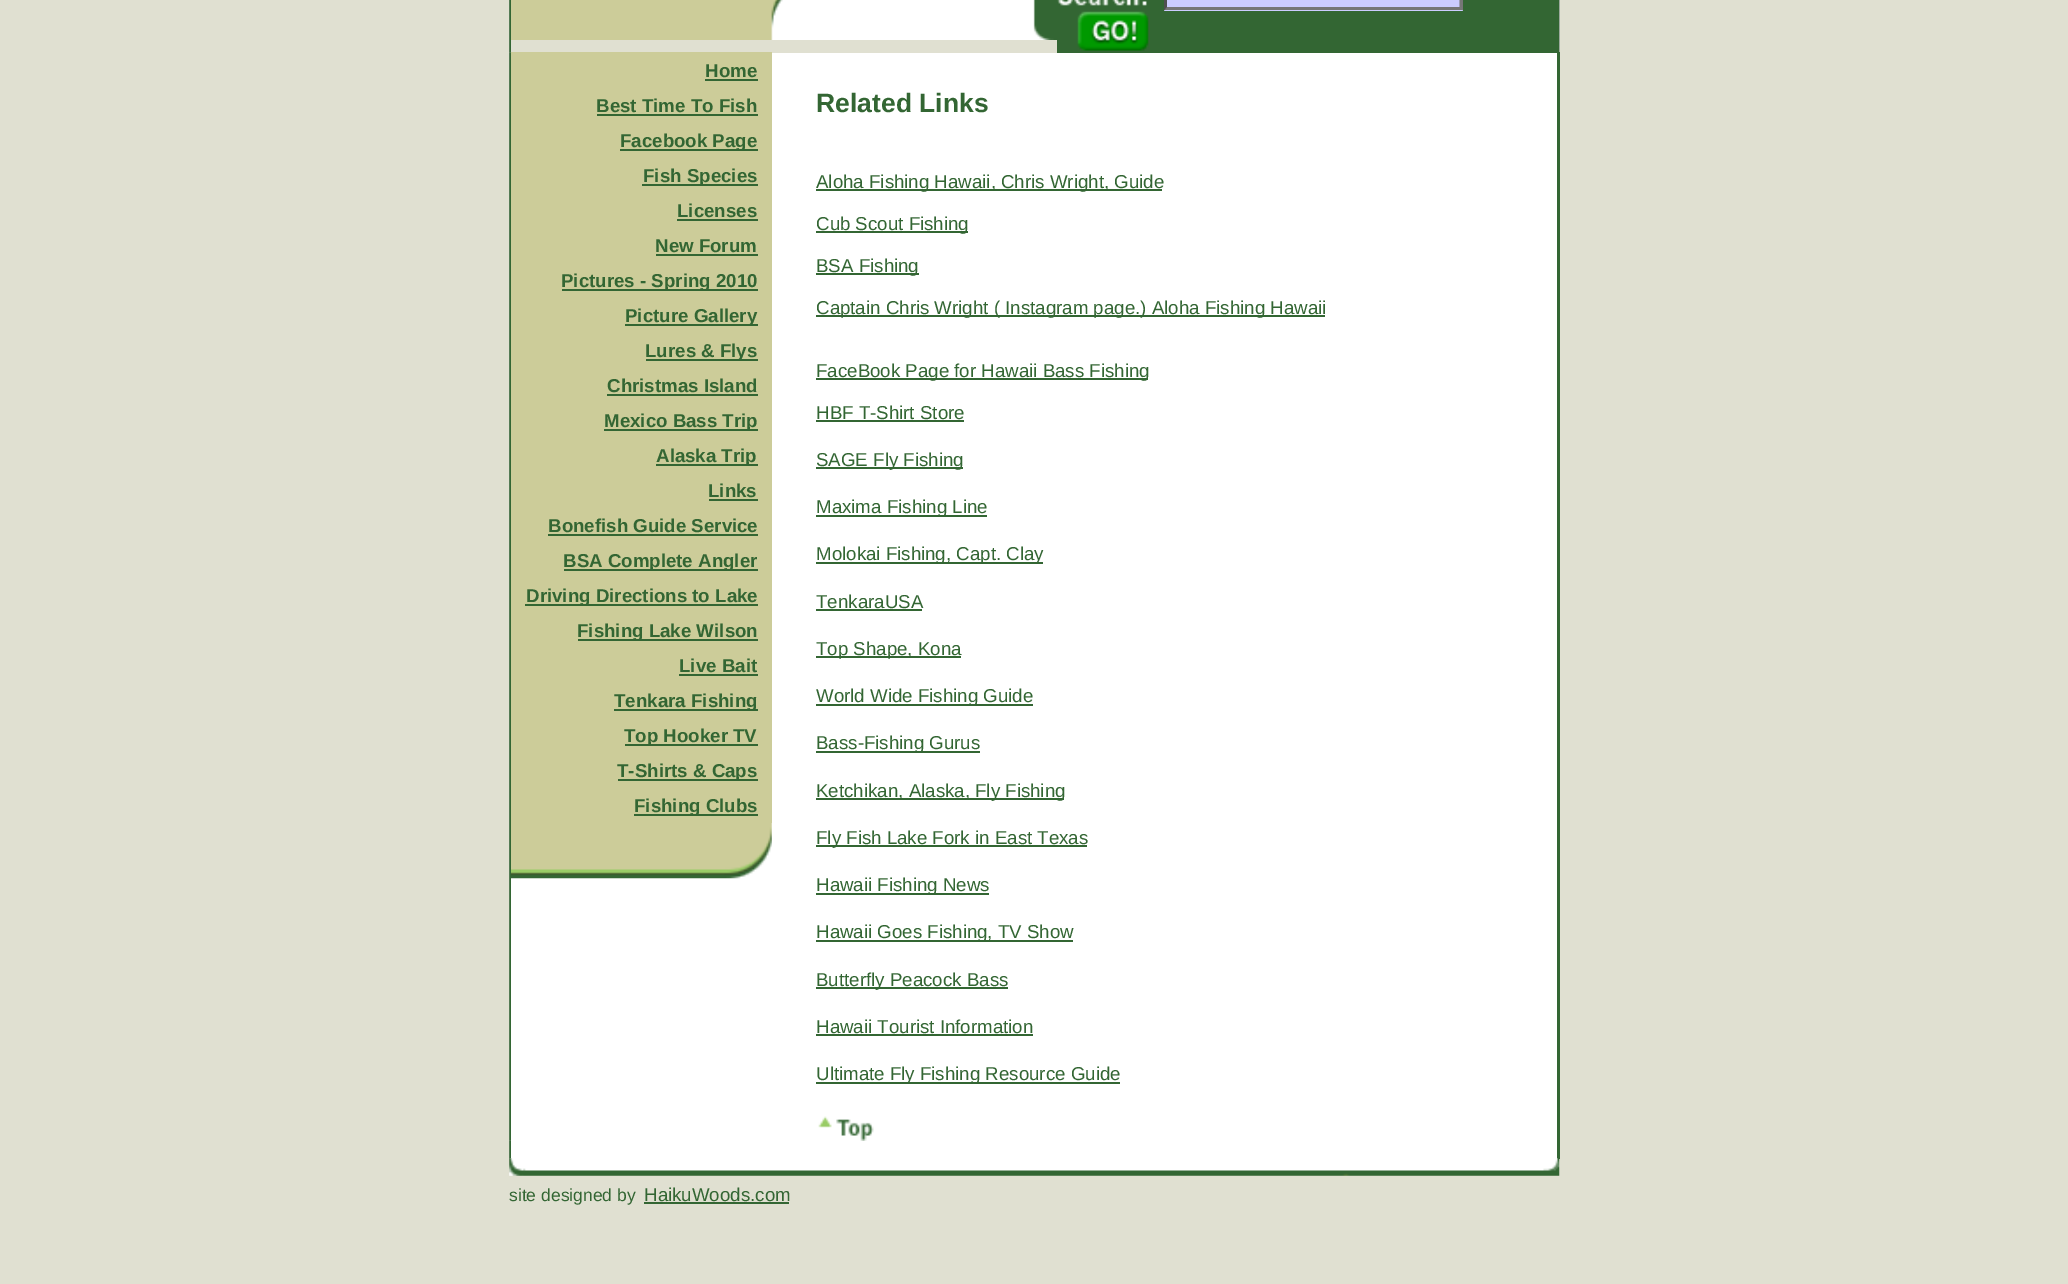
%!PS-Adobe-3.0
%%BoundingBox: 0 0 2068 1284
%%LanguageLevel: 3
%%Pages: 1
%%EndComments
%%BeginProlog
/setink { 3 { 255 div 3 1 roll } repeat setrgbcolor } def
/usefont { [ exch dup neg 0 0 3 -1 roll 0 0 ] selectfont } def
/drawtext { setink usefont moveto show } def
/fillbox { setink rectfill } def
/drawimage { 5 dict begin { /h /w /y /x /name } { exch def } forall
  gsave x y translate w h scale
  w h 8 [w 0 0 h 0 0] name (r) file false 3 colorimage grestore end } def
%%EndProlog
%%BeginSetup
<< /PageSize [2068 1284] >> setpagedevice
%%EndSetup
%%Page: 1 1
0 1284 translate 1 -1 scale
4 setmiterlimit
0 0 2068 1284 224 224 209 fillbox
509 0 2 1159 192 192 192 fillbox
(assets/img1.rgb) 509 0 2 53 drawimage
(assets/img2.rgb) 511 0 546 40 drawimage
1057 0 501 53 51 102 51 fillbox
(assets/img3.rgb) 1057 0 90 6 drawimage
1164 0 299 11 204 204 255 fillbox
118 118 118 setink
1463 -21 moveto 1463 10.5 lineto 1459.5 7 lineto 1459.5 -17.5 lineto closepath fill
1463 10 moveto 1164 10 lineto 1167 7 lineto 1460 7 lineto closepath fill
79 79 79 setink
1164 10.5 moveto 1164 -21 lineto 1167 -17.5 lineto 1167 7 lineto closepath fill
(assets/img4.rgb) 1077 11 72 40 drawimage
1559 0 1 53 192 192 192 fillbox
(assets/img5.rgb) 1558 0 2 52 drawimage
(assets/img6.rgb) 509 52 2 1089 drawimage
511 53 1046 1106 255 255 255 fillbox
511 52 261 771 204 204 153 fillbox
(Home) 705 77 /LiberationSans-Bold 18.7 51 102 51 drawtext
705 79 53 2 51 102 51 fillbox
(Best Time To Fish) 596 112 /LiberationSans-Bold 18.7 51 102 51 drawtext
597 114 161 2 51 102 51 fillbox
620 149 138 2 51 102 51 fillbox
(Facebook Page) 620 147 /LiberationSans-Bold 18.7 51 102 51 drawtext
642 184 116 2 51 102 51 fillbox
(Fish Species) 643 182 /LiberationSans-Bold 18.7 51 102 51 drawtext
(Licenses) 677 217 /LiberationSans-Bold 18.7 51 102 51 drawtext
677 219 81 2 51 102 51 fillbox
(New Forum) 655 252 /LiberationSans-Bold 18.7 51 102 51 drawtext
656 254 102 2 51 102 51 fillbox
562 289 196 2 51 102 51 fillbox
(Pictures - Spring 2010) 561 287 /LiberationSans-Bold 18.7 51 102 51 drawtext
625 324 133 2 51 102 51 fillbox
(Picture Gallery) 625 322 /LiberationSans-Bold 18.7 51 102 51 drawtext
646 359 112 2 51 102 51 fillbox
(Lures & Flys) 645 357 /LiberationSans-Bold 18.7 51 102 51 drawtext
(Christmas Island) 607 392 /LiberationSans-Bold 18.7 51 102 51 drawtext
607 394 151 2 51 102 51 fillbox
604 429 154 2 51 102 51 fillbox
(Mexico Bass Trip) 604 427 /LiberationSans-Bold 18.7 51 102 51 drawtext
656 464 102 2 51 102 51 fillbox
(Alaska Trip) 656 462 /LiberationSans-Bold 18.7 51 102 51 drawtext
(Links) 708 497 /LiberationSans-Bold 18.7 51 102 51 drawtext
709 499 49 2 51 102 51 fillbox
(Bonefish Guide Service) 548 532 /LiberationSans-Bold 18.7 51 102 51 drawtext
548 534 210 2 51 102 51 fillbox
564 569 194 2 51 102 51 fillbox
(BSA Complete Angler) 563 567 /LiberationSans-Bold 18.7 51 102 51 drawtext
525 604 233 2 51 102 51 fillbox
(Driving Directions to Lake) 526 602 /LiberationSans-Bold 18.7 51 102 51 drawtext
578 639 180 2 51 102 51 fillbox
(Fishing Lake Wilson) 577 637 /LiberationSans-Bold 18.7 51 102 51 drawtext
(Live Bait) 679 672 /LiberationSans-Bold 18.7 51 102 51 drawtext
679 674 79 2 51 102 51 fillbox
614 709 144 2 51 102 51 fillbox
(Tenkara Fishing) 614 707 /LiberationSans-Bold 18.7 51 102 51 drawtext
625 744 133 2 51 102 51 fillbox
(Top Hooker TV) 624 742 /LiberationSans-Bold 18.7 51 102 51 drawtext
618 779 140 2 51 102 51 fillbox
(T-Shirts & Caps) 617 777 /LiberationSans-Bold 18.7 51 102 51 drawtext
634 814 124 2 51 102 51 fillbox
(Fishing Clubs) 634 812 /LiberationSans-Bold 18.7 51 102 51 drawtext
(assets/img7.rgb) 511 823 261 56 drawimage
(Related Links) 816 112 /LiberationSans-Bold 26.5 51 102 51 drawtext
816 189 346 2 51 102 51 fillbox
(Aloha Fishing Hawaii, Chris Wright, Guide) 816 188 /LiberationSans-Regular 18.7 51 102 51 drawtext
816 231 152 2 51 102 51 fillbox
(Cub Scout Fishing) 816 230 /LiberationSans-Regular 18.7 51 102 51 drawtext
816 273 103 2 51 102 51 fillbox
(BSA Fishing) 816 272 /LiberationSans-Regular 18.7 51 102 51 drawtext
816 315 509 2 51 102 51 fillbox
(Captain Chris Wright \( Instagram page.\) Aloha Fishing Hawaii) 816 314 /LiberationSans-Regular 18.7 51 102 51 drawtext
816 378 332 2 51 102 51 fillbox
(FaceBook Page for Hawaii Bass Fishing) 816 377 /LiberationSans-Regular 18.7 51 102 51 drawtext
(HBF T-Shirt Store) 816 419 /LiberationSans-Regular 18.7 51 102 51 drawtext
816 420 148 2 51 102 51 fillbox
816 467 147 2 51 102 51 fillbox
(SAGE Fly Fishing) 816 466 /LiberationSans-Regular 18.7 51 102 51 drawtext
816 515 171 2 51 102 51 fillbox
(Maxima Fishing Line) 816 513 /LiberationSans-Regular 18.7 51 102 51 drawtext
816 562 227 2 51 102 51 fillbox
(Molokai Fishing, Capt. Clay) 816 560 /LiberationSans-Regular 18.7 51 102 51 drawtext
(TenkaraUSA) 816 608 /LiberationSans-Regular 18.7 51 102 51 drawtext
816 609 106 2 51 102 51 fillbox
816 656 145 2 51 102 51 fillbox
(Top Shape, Kona) 816 655 /LiberationSans-Regular 18.7 51 102 51 drawtext
816 704 217 2 51 102 51 fillbox
(World Wide Fishing Guide) 816 702 /LiberationSans-Regular 18.7 51 102 51 drawtext
816 751 164 2 51 102 51 fillbox
(Bass-Fishing Gurus) 816 749 /LiberationSans-Regular 18.7 51 102 51 drawtext
816 798 248 2 51 102 51 fillbox
(Ketchikan, Alaska, Fly Fishing) 816 797 /LiberationSans-Regular 18.7 51 102 51 drawtext
816 845 271 2 51 102 51 fillbox
(Fly Fish Lake Fork in East Texas) 816 844 /LiberationSans-Regular 18.7 51 102 51 drawtext
816 893 173 2 51 102 51 fillbox
(Hawaii Fishing News) 816 891 /LiberationSans-Regular 18.7 51 102 51 drawtext
816 940 257 2 51 102 51 fillbox
(Hawaii Goes Fishing, TV Show) 816 938 /LiberationSans-Regular 18.7 51 102 51 drawtext
816 987 192 2 51 102 51 fillbox
(Butterfly Peacock Bass) 816 986 /LiberationSans-Regular 18.7 51 102 51 drawtext
(Hawaii Tourist Information) 816 1033 /LiberationSans-Regular 18.7 51 102 51 drawtext
816 1034 217 2 51 102 51 fillbox
816 1082 304 2 51 102 51 fillbox
(Ultimate Fly Fishing Resource Guide) 816 1080 /LiberationSans-Regular 18.7 51 102 51 drawtext
(assets/img8.rgb) 818 1116 56 25 drawimage
1557 52 3 1107 51 102 51 fillbox
(assets/img9.rgb) 509 1140 2 19 drawimage
(assets/img10.rgb) 509 1158 1051 18 drawimage
(site designed by) 509 1201 /LiberationSans-Regular 17.5 51 102 51 drawtext
(HaikuWoods.com) 644 1201 /LiberationSans-Regular 18.7 51 102 51 drawtext
644 1202 145 2 51 102 51 fillbox
showpage
%%EOF
